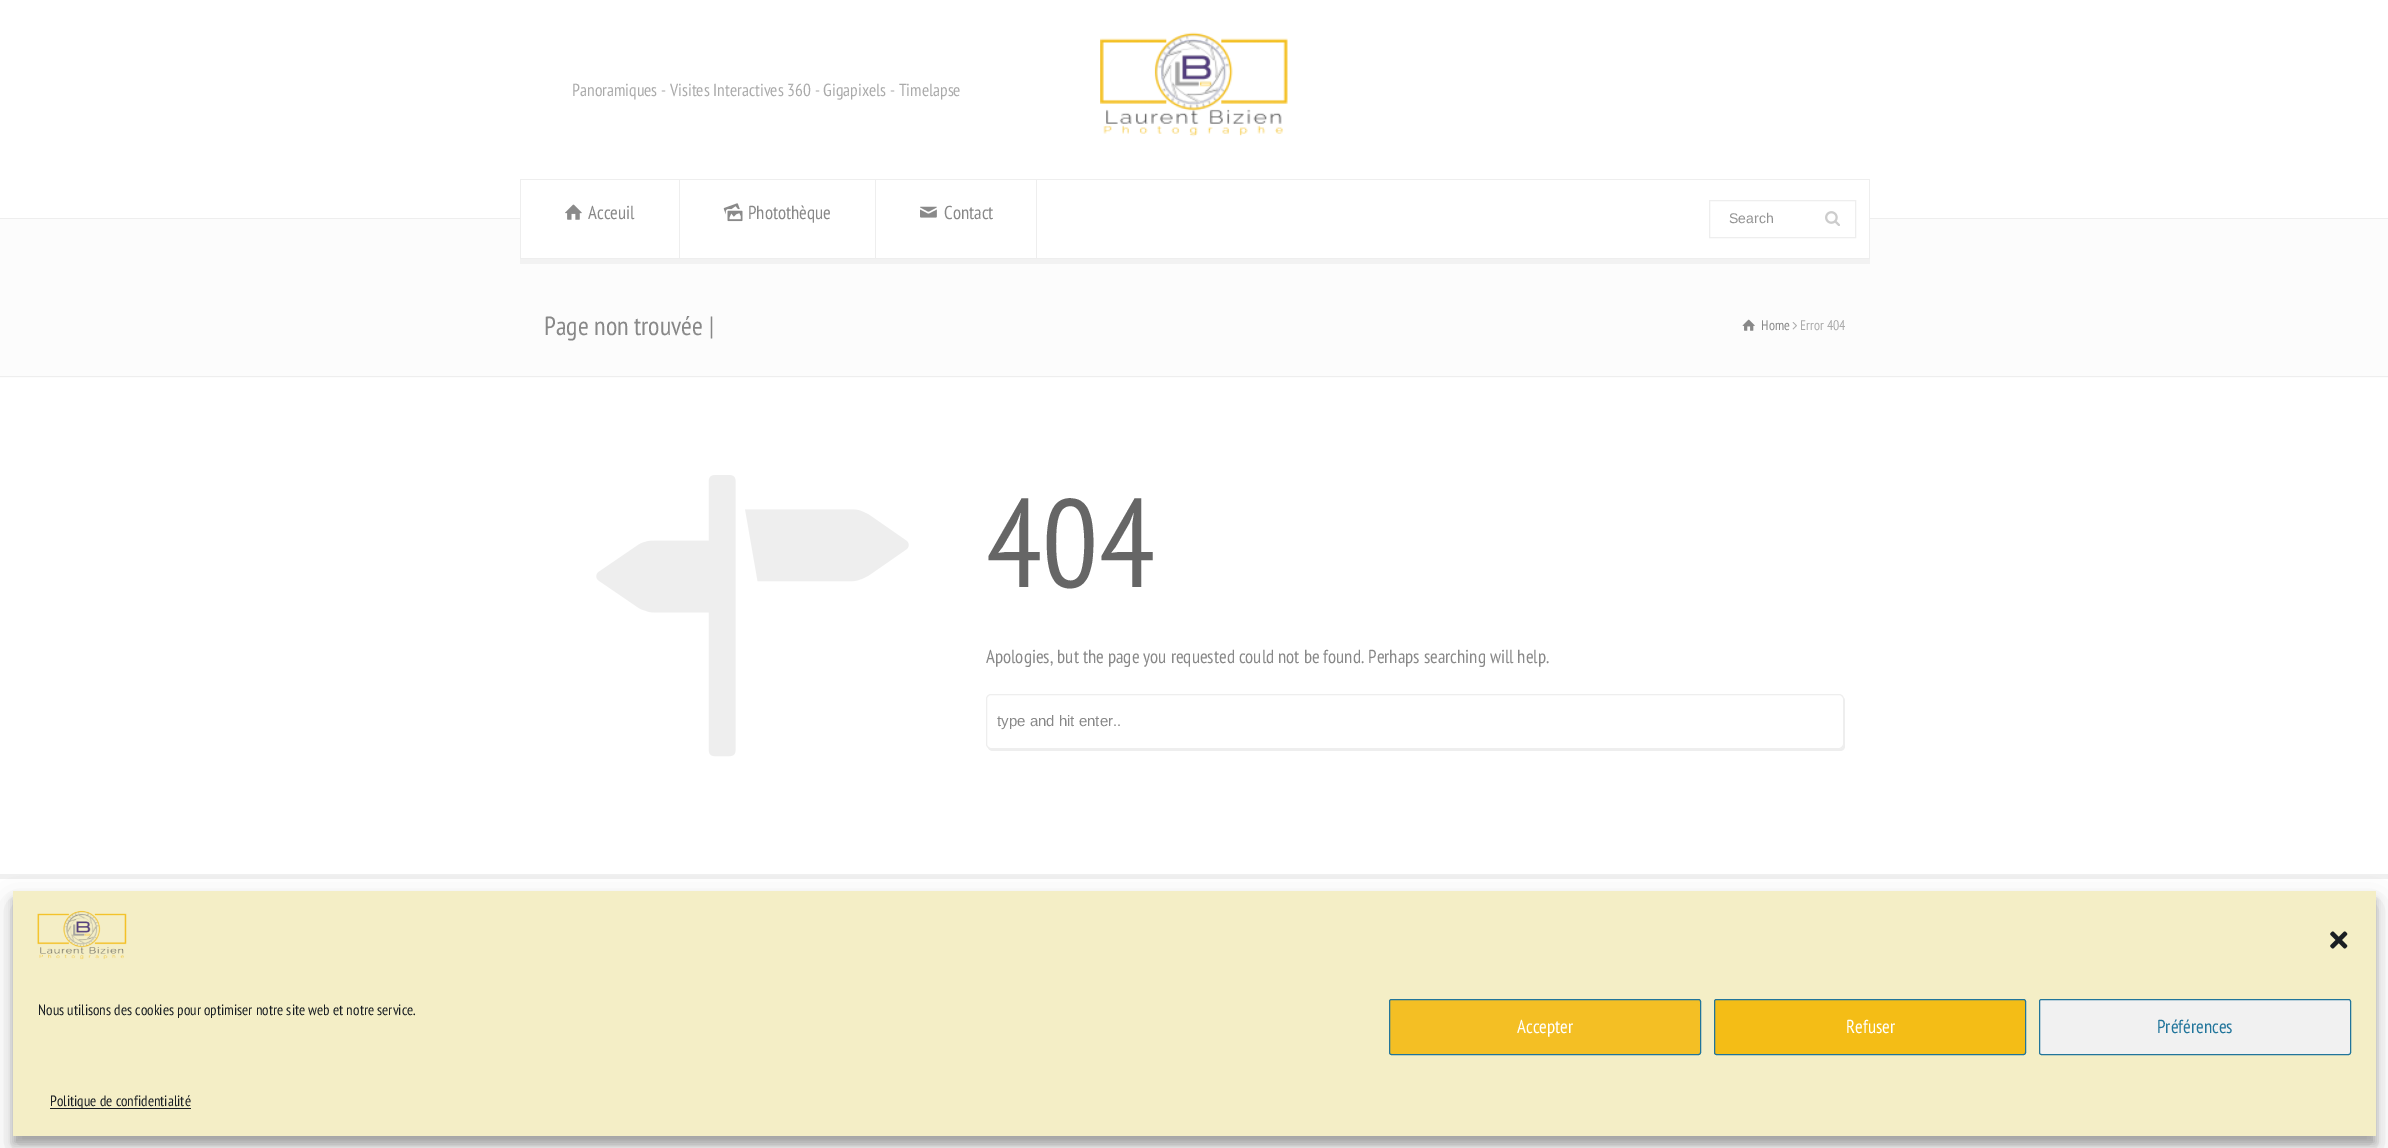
%!PS-Adobe-3.0
%%BoundingBox: 0 0 2388 1148
%%LanguageLevel: 3
%%Pages: 1
%%EndComments
%%BeginProlog
/setink { 3 { 255 div 3 1 roll } repeat setrgbcolor } def
/usefont { [ exch dup neg 0 0 3 -1 roll 0 0 ] selectfont } def
/drawtext { setink usefont moveto show } def
/fillbox { setink rectfill } def
/setalpha { dup .setfillconstantalpha .setstrokeconstantalpha } def
/rrect { 5 dict begin { /r /h /w /y /x } { exch def } forall
  x r add y moveto x w add y 2 copy h add r arct x w add y h add x 1 index r arct
  x y h add x y r arct x y 2 copy exch w add exch r arct closepath end } def
/softshadow { 12 dict begin { /a /b /q /h /w /y /x } { exch def } forall gsave /was 0 def
  9 -2 -9 { dup b mul 4 div /e exch def 1 sub .425 mul 2.718 exch exp 1 add a .99 .min exch div /now exch def
    1 1 now sub 1 was sub div sub setalpha /was now def
    w h .min e 2 mul add 0 gt { x e sub y e sub w e 2 mul add h e 2 mul add
      q e add b .6 mul add w h .min 2 div e add .min 0 .max rrect fill } if } for grestore end } def
/drawimage { 5 dict begin { /h /w /y /x /name } { exch def } forall
  gsave x y translate w h scale
  w h 8 [w 0 0 h 0 0] name (r) file false 3 colorimage grestore end } def
%%EndProlog
%%BeginSetup
<< /PageSize [2388 1148] /PageUsesTransparency true >> setpagedevice
%%EndSetup
%%Page: 1 1
0 .pushpdf14devicefilter
0 1148 translate 1 -1 scale
4 setmiterlimit
0 0 2388 1148 255 255 255 fillbox
(Panoramiques - Visites Interactives 360 - Gigapixels - Timelapse) 572 96 /PTSansNarrow-Regular 17.5 170 170 170 drawtext
(assets/img1.rgb) 1100 32 188 105 drawimage
0 219 2388 159 252 252 252 fillbox
520 259 1350 5 242 242 242 fillbox
0 218 2388 1 238 238 238 fillbox
521 218 1348 40 255 255 255 fillbox
520 179 1350 1 238 238 238 fillbox
1869 179 1 80 238 238 238 fillbox
520 258 1350 1 238 238 238 fillbox
679 180 1 78 238 238 238 fillbox
520 180 1 78 238 238 238 fillbox
(assets/img2.rgb) 565 204 17 16 drawimage
(Acceuil) 588 219 /PTSansNarrow-Regular 18.75 136 136 136 drawtext
875 180 1 78 238 238 238 fillbox
(assets/img3.rgb) 723 203 20 19 drawimage
(Photothèque) 748 219 /PTSansNarrow-Regular 18.75 136 136 136 drawtext
1036 180 1 78 238 238 238 fillbox
(assets/img4.rgb) 920 206 17 12 drawimage
(Contact) 944 219 /PTSansNarrow-Regular 18.75 136 136 136 drawtext
238 238 238 setink
1709.5 200.5 146 37 rectstroke
(Search) 1729 223 /LiberationSans-Regular 14 146 146 146 drawtext
(assets/img5.rgb) 1825 211 15 15 drawimage
0 376 2388 1 238 238 238 fillbox
(Page non trouvée |) 544 335 /PTSansNarrow-Regular 26.25 136 136 136 drawtext
(assets/img6.rgb) 1742 319 13 12 drawimage
(Home) 1761 330 /PTSansNarrow-Regular 14 136 136 136 drawtext
(assets/img7.rgb) 1792 322 5 8 drawimage
(Error 404) 1800 330 /PTSansNarrow-Regular 14 170 170 170 drawtext
(assets/img8.rgb) 596 475 313 282 drawimage
(404) 986 587 /PTSansNarrow-Regular 125 102 102 102 drawtext
(Apologies, but the page you requested could not be found. Perhaps searching will help.) 986 663 /PTSansNarrow-Regular 18.75 136 136 136 drawtext
238 238 238 setink
988 748 moveto 989 750 991 751 993 751 curveto 1840 751 lineto 1843 751 1845 749 1845 746 curveto 1845 701 lineto 1845 700 1844 698 1844 698 curveto 1844 736 lineto 1844 740 1845 749 1839 749 curveto 991 749 lineto closepath fill
255 255 255 setink
986.5 694.5 857 54 4.5 rrect gsave fill grestore
238 238 238 setink
stroke
(type and hit enter..) 997 726 /LiberationSans-Regular 15 136 136 136 drawtext
0 874 2388 5 240 240 240 fillbox
0 0 0 setink
13 899 2363 245 1 4 0.23 softshadow
13 904 2363 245 1 12.5 0.19 softshadow
244 238 198 setink
13 891 2363 245 1 rrect fill
(assets/img9.rgb) 37 910 90 50 drawimage
(assets/img10.rgb) 2330 931 18 18 drawimage
(Nous utilisons des cookies pour optimiser notre site web et notre service.) 38 1015 /PTSansNarrow-Regular 15 25 30 35 drawtext
244 191 36 setink
1389.5 999.5 311 55 2 rrect gsave fill grestore
33 117 155 setink
stroke
(Accepter) 1517 1033 /PTSansNarrow-Regular 18.75 255 255 255 drawtext
244 189 22 setink
1714.5 999.5 311 55 2 rrect gsave fill grestore
33 117 155 setink
stroke
(Refuser) 1846 1033 /PTSansNarrow-Regular 18.75 255 255 255 drawtext
241 241 241 setink
2039.5 999.5 311 55 2 rrect gsave fill grestore
33 117 155 setink
stroke
(Préférences) 2157 1033 /PTSansNarrow-Regular 18.75 33 117 155 drawtext
50 1108 141 1 25 30 35 fillbox
(Politique de confidentialité) 50 1106 /PTSansNarrow-Regular 15 25 30 35 drawtext
.poppdf14devicefilter showpage
%%EOF
